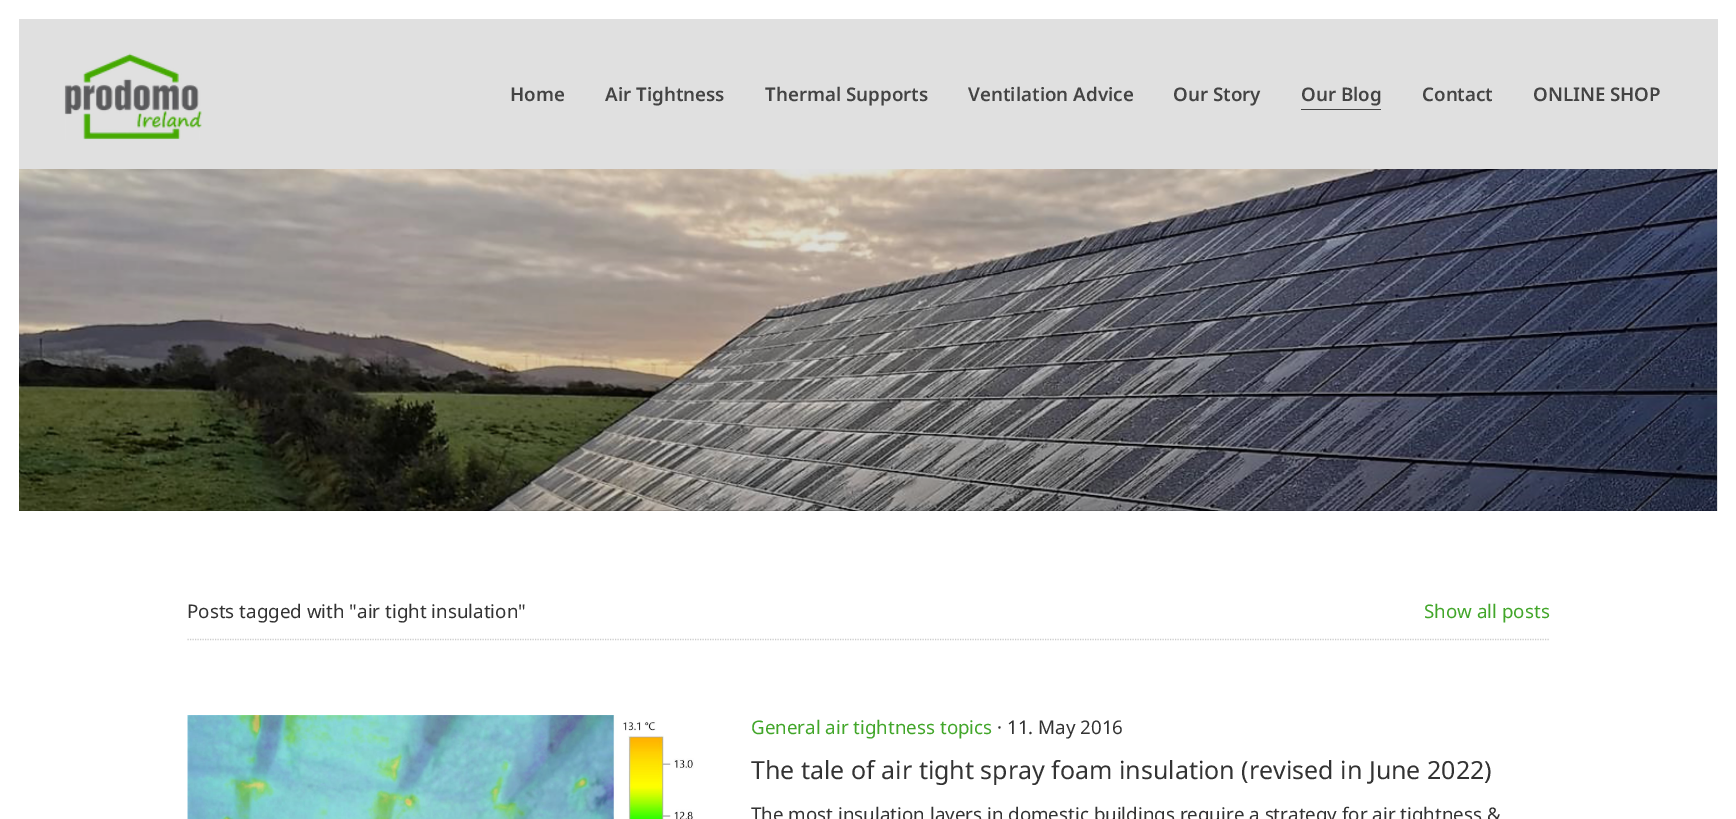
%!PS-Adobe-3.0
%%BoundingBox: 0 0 1736 819
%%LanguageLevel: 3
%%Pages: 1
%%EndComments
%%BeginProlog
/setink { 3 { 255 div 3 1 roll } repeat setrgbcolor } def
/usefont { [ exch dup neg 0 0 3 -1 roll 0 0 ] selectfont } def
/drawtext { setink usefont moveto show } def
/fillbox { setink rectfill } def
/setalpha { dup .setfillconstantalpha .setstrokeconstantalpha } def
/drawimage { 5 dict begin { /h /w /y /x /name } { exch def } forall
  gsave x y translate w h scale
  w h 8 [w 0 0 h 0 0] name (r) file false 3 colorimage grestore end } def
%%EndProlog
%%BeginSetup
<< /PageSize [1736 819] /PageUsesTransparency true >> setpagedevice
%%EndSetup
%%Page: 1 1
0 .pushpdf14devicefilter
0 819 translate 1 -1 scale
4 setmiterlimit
0 0 1736 819 255 255 255 fillbox
(assets/img1.rgb) 19 169 1698 342 drawimage
0.12 setalpha
19 19 1699 492 0 0 0 fillbox
1 setalpha
(assets/img2.rgb) 64 53 138 87 drawimage
(Home) 510 101 /NotoSans-SemiBold 18.75 68 68 68 drawtext
(Air Tightness) 605 101 /NotoSans-SemiBold 18.75 68 68 68 drawtext
(Thermal Supports) 765 101 /NotoSans-SemiBold 18.75 68 68 68 drawtext
(Ventilation Advice) 968 101 /NotoSans-SemiBold 18.75 68 68 68 drawtext
(Our Story) 1173 101 /NotoSans-SemiBold 18.75 68 68 68 drawtext
(Our Blog) 1301 101 /NotoSans-SemiBold 18.75 68 68 68 drawtext
1301 109 80 1 68 68 68 fillbox
(Contact) 1422 101 /NotoSans-SemiBold 18.75 68 68 68 drawtext
(ONLINE SHOP) 1533 101 /NotoSans-SemiBold 18.75 68 68 68 drawtext
(Posts tagged with "air tight insulation") 187 618 /NotoSans-Regular 18.75 51 51 51 drawtext
(Show all posts) 1424 618 /NotoSans-Regular 18.75 66 166 42 drawtext
204 204 204 setink
1.2 setlinewidth
[1.25 1.25] 0 setdash
187.5 639.5 moveto 1550 639.5 lineto stroke
(assets/img3.rgb) 187 715 507 104 drawimage
(General air tightness topics) 751 734 /NotoSans-Regular 18.75 66 166 42 drawtext
(· 11. May 2016) 997 734 /NotoSans-Regular 18.75 51 51 51 drawtext
(The tale of air tight spray foam insulation \(revised in June 2022\)) 751 779 /NotoSans-Regular 25 51 51 51 drawtext
(The most insulation layers in domestic buildings require a strategy for air tightness &) 751 821 /NotoSans-Regular 18.75 51 51 51 drawtext
.poppdf14devicefilter showpage
%%EOF
